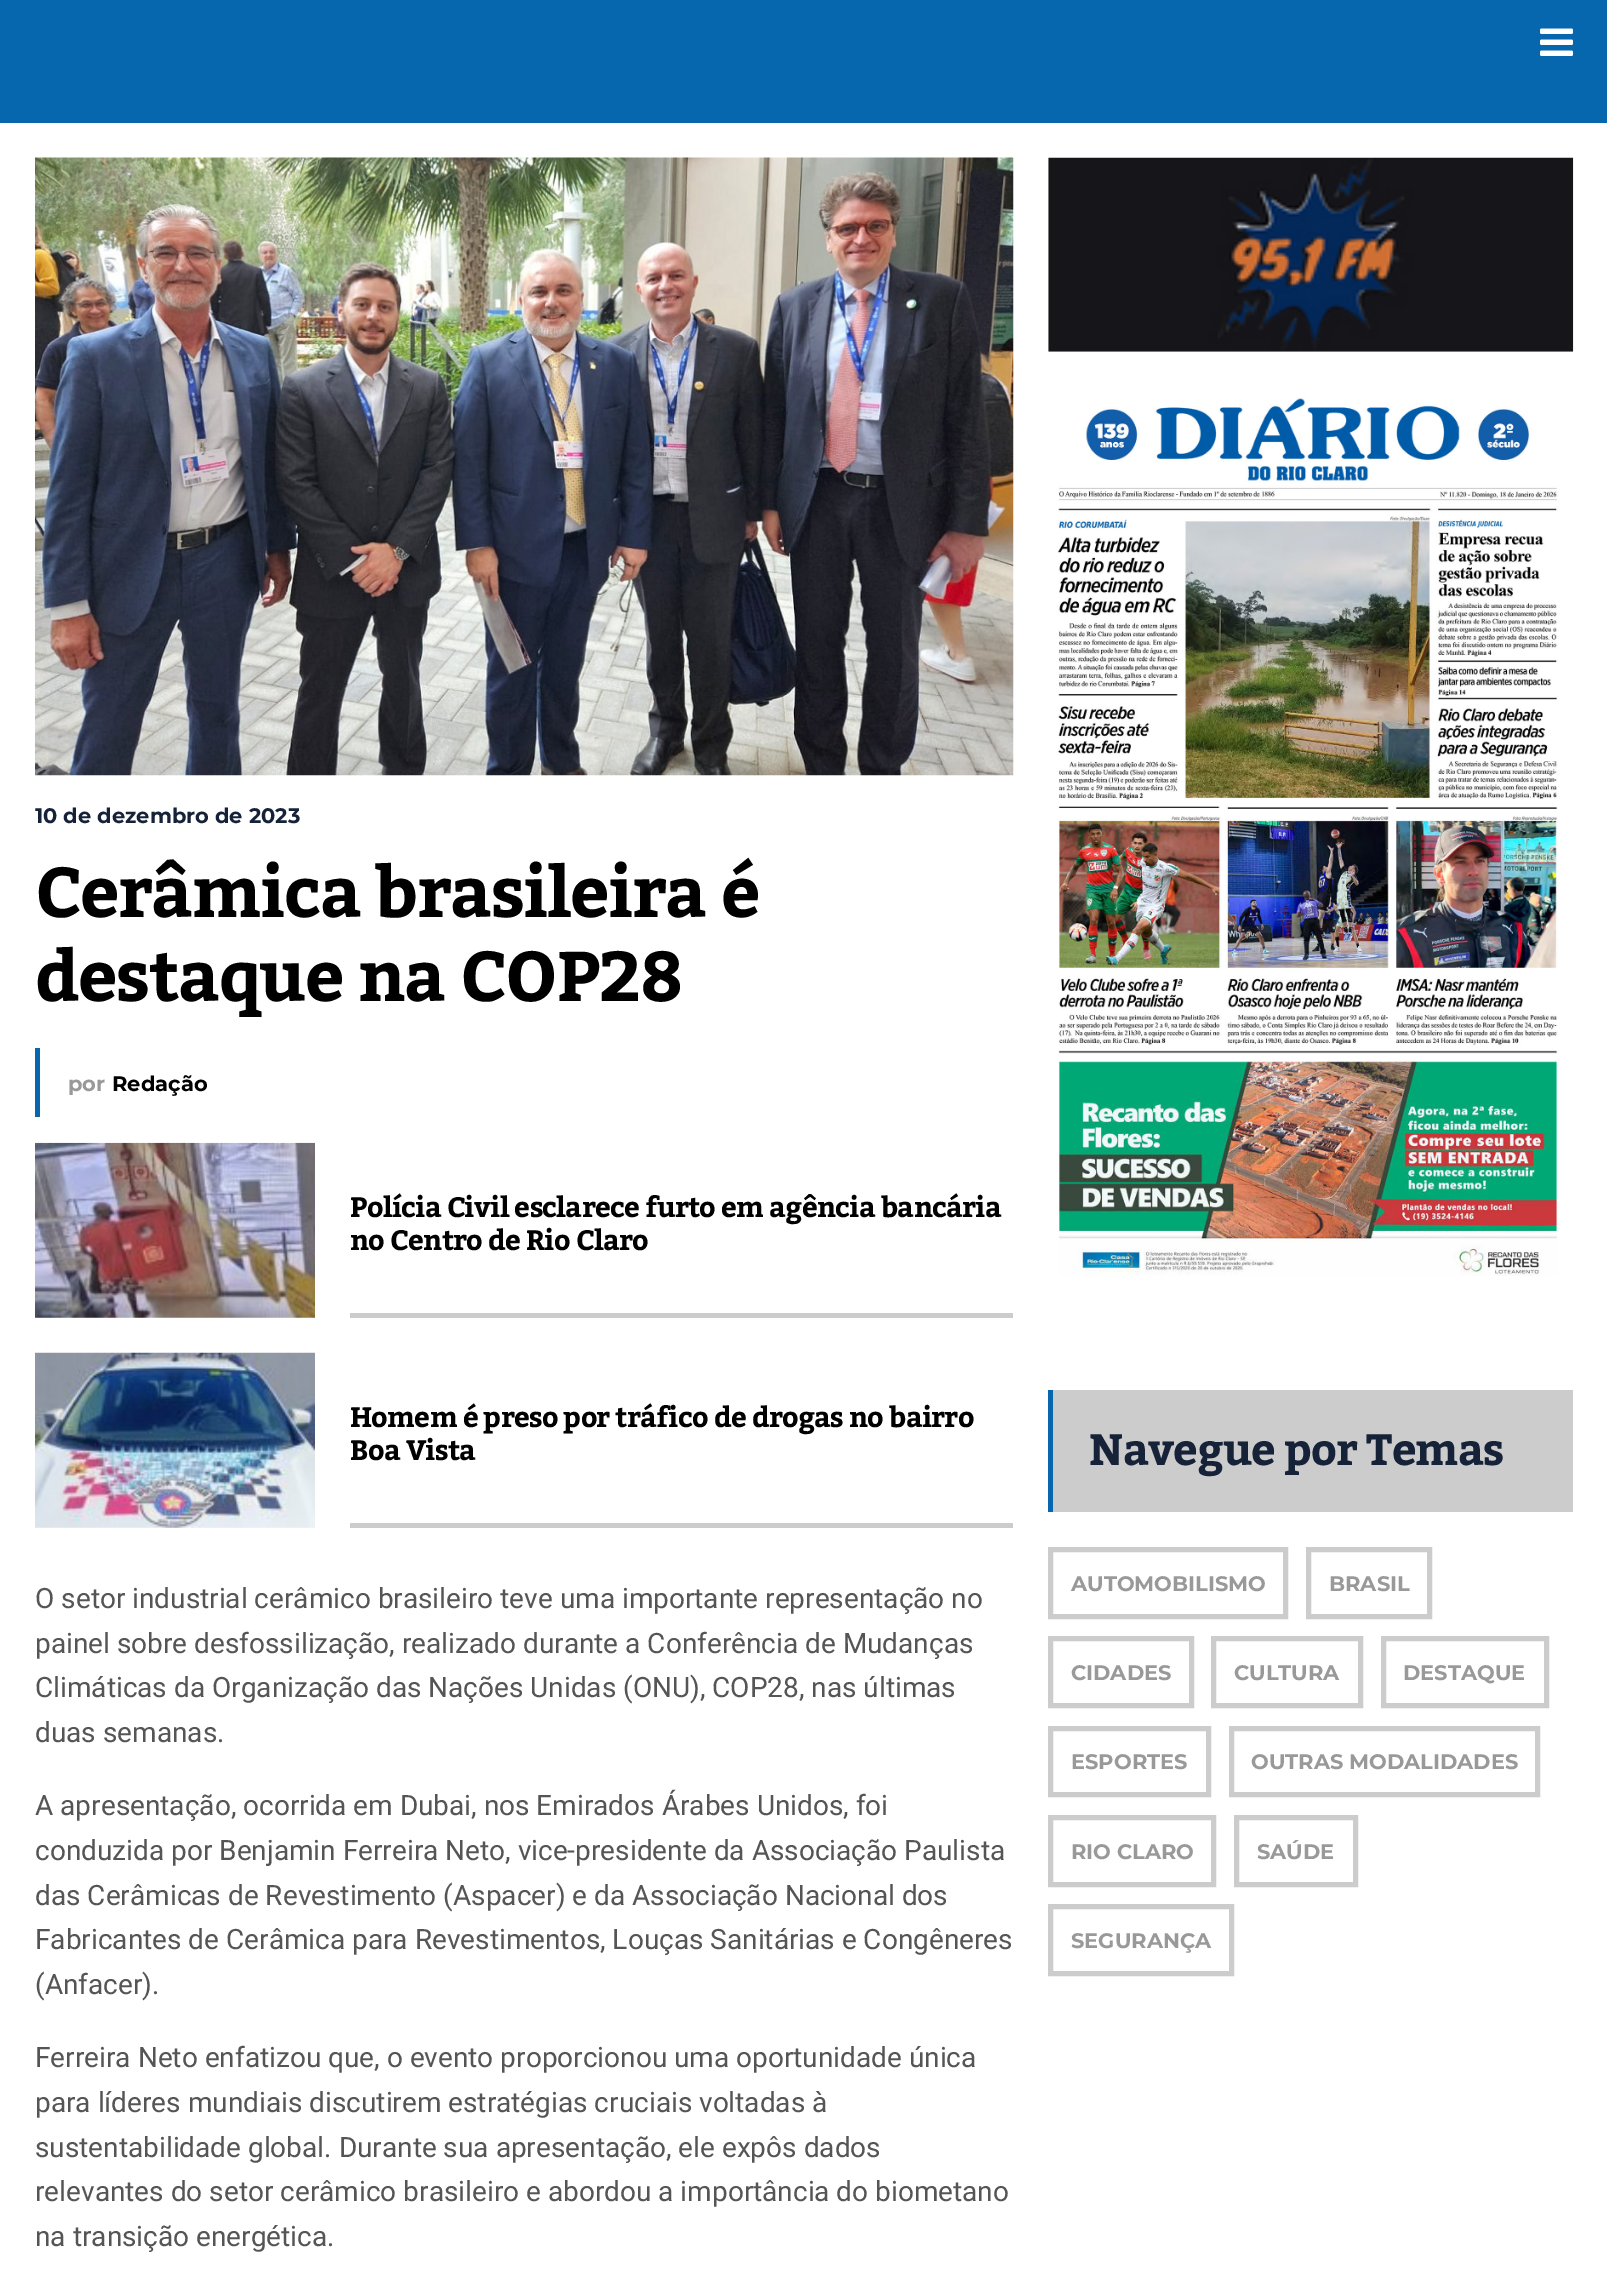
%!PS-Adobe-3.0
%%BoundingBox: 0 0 1607 2283
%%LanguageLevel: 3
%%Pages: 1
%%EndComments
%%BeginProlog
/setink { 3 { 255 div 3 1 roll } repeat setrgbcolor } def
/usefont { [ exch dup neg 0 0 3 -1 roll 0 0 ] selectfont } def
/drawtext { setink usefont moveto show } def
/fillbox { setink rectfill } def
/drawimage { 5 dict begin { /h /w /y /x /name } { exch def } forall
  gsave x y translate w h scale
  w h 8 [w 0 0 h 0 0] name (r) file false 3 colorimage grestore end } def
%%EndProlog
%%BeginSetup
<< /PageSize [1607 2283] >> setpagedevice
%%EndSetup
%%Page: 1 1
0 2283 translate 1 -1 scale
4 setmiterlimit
0 0 1607 2283 6 103 174 fillbox
(assets/img1.rgb) 1540 28 33 28 drawimage
0 123 1607 2160 255 255 255 fillbox
(assets/img2.rgb) 35 157 979 619 drawimage
(10 de dezembro de 2023) 35 823 /Montserrat-Bold 21 22 34 56 drawtext
/Kadwa-Bold 70 usefont
0 0 0 setink
35 917 moveto -1.4 0 (Cerâmica brasileira é) ashow
35 1001 moveto -1.4 0 (destaque na COP28) ashow
35 1048 5 69 6 103 174 fillbox
(por) 68 1091 /Montserrat-Bold 21 153 153 153 drawtext
(Redação) 112 1091 /Montserrat-Bold 21 0 0 0 drawtext
(assets/img3.rgb) 35 1142 280 176 drawimage
350 1313 663 5 204 204 204 fillbox
/Kadwa-Bold 28 usefont
0 0 0 setink
350 1217 moveto -0.7 0 (Polícia Civil esclarece furto em agência bancária) ashow
350 1250 moveto -0.7 0 (no Centro de Rio Claro) ashow
(assets/img4.rgb) 35 1352 280 176 drawimage
350 1523 663 5 204 204 204 fillbox
0 0 0 setink
350 1427 moveto -0.7 0 (Homem é preso por tráfico de drogas no bairro) ashow
350 1460 moveto -0.7 0 (Boa Vista) ashow
(O setor industrial cerâmico brasileiro teve uma importante representação no) 35 1608 /Roboto-Regular 28 85 85 85 drawtext
(painel sobre desfossilização, realizado durante a Conferência de Mudanças) 35 1653 /Roboto-Regular 28 85 85 85 drawtext
(Climáticas da Organização das Nações Unidas \(ONU\), COP28, nas últimas) 35 1697 /Roboto-Regular 28 85 85 85 drawtext
(duas semanas.) 35 1742 /Roboto-Regular 28 85 85 85 drawtext
(A apresentação, ocorrida em Dubai, nos Emirados Árabes Unidos, foi) 35 1815 /Roboto-Regular 28 85 85 85 drawtext
(conduzida por Benjamin Ferreira Neto, vice-presidente da Associação Paulista) 35 1860 /Roboto-Regular 28 85 85 85 drawtext
(das Cerâmicas de Revestimento \(Aspacer\) e da Associação Nacional dos) 35 1905 /Roboto-Regular 28 85 85 85 drawtext
(Fabricantes de Cerâmica para Revestimentos, Louças Sanitárias e Congêneres) 35 1949 /Roboto-Regular 28 85 85 85 drawtext
(\(Anfacer\).) 35 1994 /Roboto-Regular 28 85 85 85 drawtext
(Ferreira Neto enfatizou que, o evento proporcionou uma oportunidade única) 35 2067 /Roboto-Regular 28 85 85 85 drawtext
(para líderes mundiais discutirem estratégias cruciais voltadas à) 35 2112 /Roboto-Regular 28 85 85 85 drawtext
(sustentabilidade global. Durante sua apresentação, ele expôs dados) 35 2157 /Roboto-Regular 28 85 85 85 drawtext
(relevantes do setor cerâmico brasileiro e abordou a importância do biometano) 35 2201 /Roboto-Regular 28 85 85 85 drawtext
(na transição energética.) 35 2246 /Roboto-Regular 28 85 85 85 drawtext
(assets/img5.rgb) 1048 157 526 195 drawimage
(assets/img6.rgb) 1057 397 502 879 drawimage
1053 1390 520 122 204 204 204 fillbox
1048 1390 5 122 6 103 174 fillbox
/Kadwa-Bold 43.75 usefont
22 34 56 setink
1089 1465 moveto -0.9 0 (Navegue por Temas) ashow
204 204 204 setink
5 setlinewidth
1050.5 1549.5 235 67 rectstroke
(AUTOMOBILISMO) 1071 1591 /Montserrat-Bold 21 153 153 153 drawtext
204 204 204 setink
1308.5 1549.5 121 67 rectstroke
(BRASIL) 1329 1591 /Montserrat-Bold 21 153 153 153 drawtext
204 204 204 setink
1050.5 1638.5 141 67 rectstroke
(CIDADES) 1071 1680 /Montserrat-Bold 21 153 153 153 drawtext
204 204 204 setink
1213.5 1638.5 147 67 rectstroke
(CULTURA) 1234 1680 /Montserrat-Bold 21 153 153 153 drawtext
204 204 204 setink
1383.5 1638.5 163 67 rectstroke
(DESTAQUE) 1403 1680 /Montserrat-Bold 21 153 153 153 drawtext
204 204 204 setink
1050.5 1728.5 158 66 rectstroke
(ESPORTES) 1071 1769 /Montserrat-Bold 21 153 153 153 drawtext
204 204 204 setink
1231.5 1728.5 306 66 rectstroke
(OUTRAS MODALIDADES) 1251 1769 /Montserrat-Bold 21 153 153 153 drawtext
204 204 204 setink
1050.5 1817.5 163 67 rectstroke
(RIO CLARO) 1071 1859 /Montserrat-Bold 21 153 153 153 drawtext
204 204 204 setink
1236.5 1817.5 119 67 rectstroke
(SAÚDE) 1257 1859 /Montserrat-Bold 21 153 153 153 drawtext
204 204 204 setink
1050.5 1906.5 181 67 rectstroke
(SEGURANÇA) 1071 1948 /Montserrat-Bold 21 153 153 153 drawtext
showpage
%%EOF
